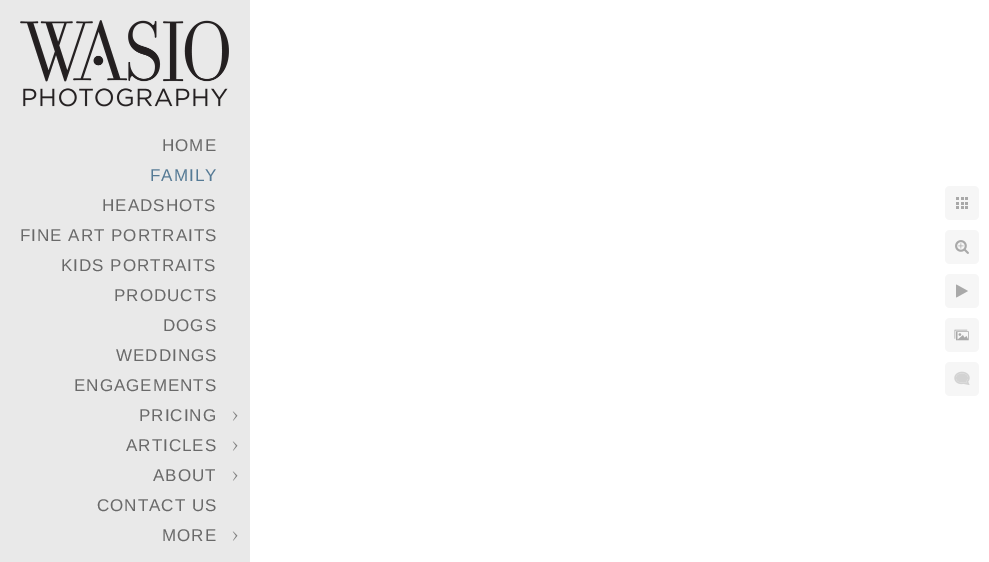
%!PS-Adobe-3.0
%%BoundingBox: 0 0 989 562
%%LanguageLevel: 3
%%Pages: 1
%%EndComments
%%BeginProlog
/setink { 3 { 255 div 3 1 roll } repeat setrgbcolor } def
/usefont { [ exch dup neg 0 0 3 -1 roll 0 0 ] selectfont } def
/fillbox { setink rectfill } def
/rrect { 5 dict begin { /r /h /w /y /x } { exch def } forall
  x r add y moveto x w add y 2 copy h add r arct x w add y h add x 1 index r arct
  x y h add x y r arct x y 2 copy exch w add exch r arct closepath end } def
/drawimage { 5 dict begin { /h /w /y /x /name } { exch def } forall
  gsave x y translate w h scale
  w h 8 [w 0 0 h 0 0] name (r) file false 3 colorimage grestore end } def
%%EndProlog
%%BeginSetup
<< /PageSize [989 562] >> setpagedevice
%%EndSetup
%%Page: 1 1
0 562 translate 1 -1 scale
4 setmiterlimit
0 0 989 562 255 255 255 fillbox
0 0 250 562 233 233 233 fillbox
(assets/img1.rgb) 20 20 209 87 drawimage
/LiberationSans-Regular 17 usefont
105 105 105 setink
162 151 moveto 1 0 (HOME) ashow
85 122 149 setink
150 181 moveto 1 0 (FAMILY) ashow
105 105 105 setink
102 211 moveto 1 0 (HEADSHOTS) ashow
20 241 moveto 1 0 (FINE ART PORTRAITS) ashow
61 271 moveto 1 0 (KIDS PORTRAITS) ashow
114 301 moveto 1 0 (PRODUCTS) ashow
163 331 moveto 1 0 (DOGS) ashow
116 361 moveto 1 0 (WEDDINGS) ashow
74 391 moveto 1 0 (ENGAGEMENTS) ashow
139 421 moveto 1 0 (PRICING) ashow
(assets/img2.rgb) 232 411 6 10 drawimage
126 451 moveto 1 0 (ARTICLES) ashow
(assets/img2.rgb) 232 441 6 10 drawimage
153 481 moveto 1 0 (ABOUT) ashow
(assets/img2.rgb) 232 471 6 10 drawimage
97 511 moveto 1 0 (CONTACT US) ashow
162 541 moveto 1 0 (MORE) ashow
(assets/img2.rgb) 232 531 6 10 drawimage
246 246 246 setink
945 186 34 34 5 rrect fill
(assets/img3.rgb) 956 197 12 12 drawimage
945 230 34 34 5 rrect fill
(assets/img4.rgb) 955 240 14 14 drawimage
945 274 34 34 5 rrect fill
(assets/img5.rgb) 956 284 12 14 drawimage
945 318 34 34 5 rrect fill
(assets/img6.rgb) 954 329 15 12 drawimage
945 362 34 34 5 rrect fill
(assets/img7.rgb) 954 371 16 14 drawimage
showpage
%%EOF
